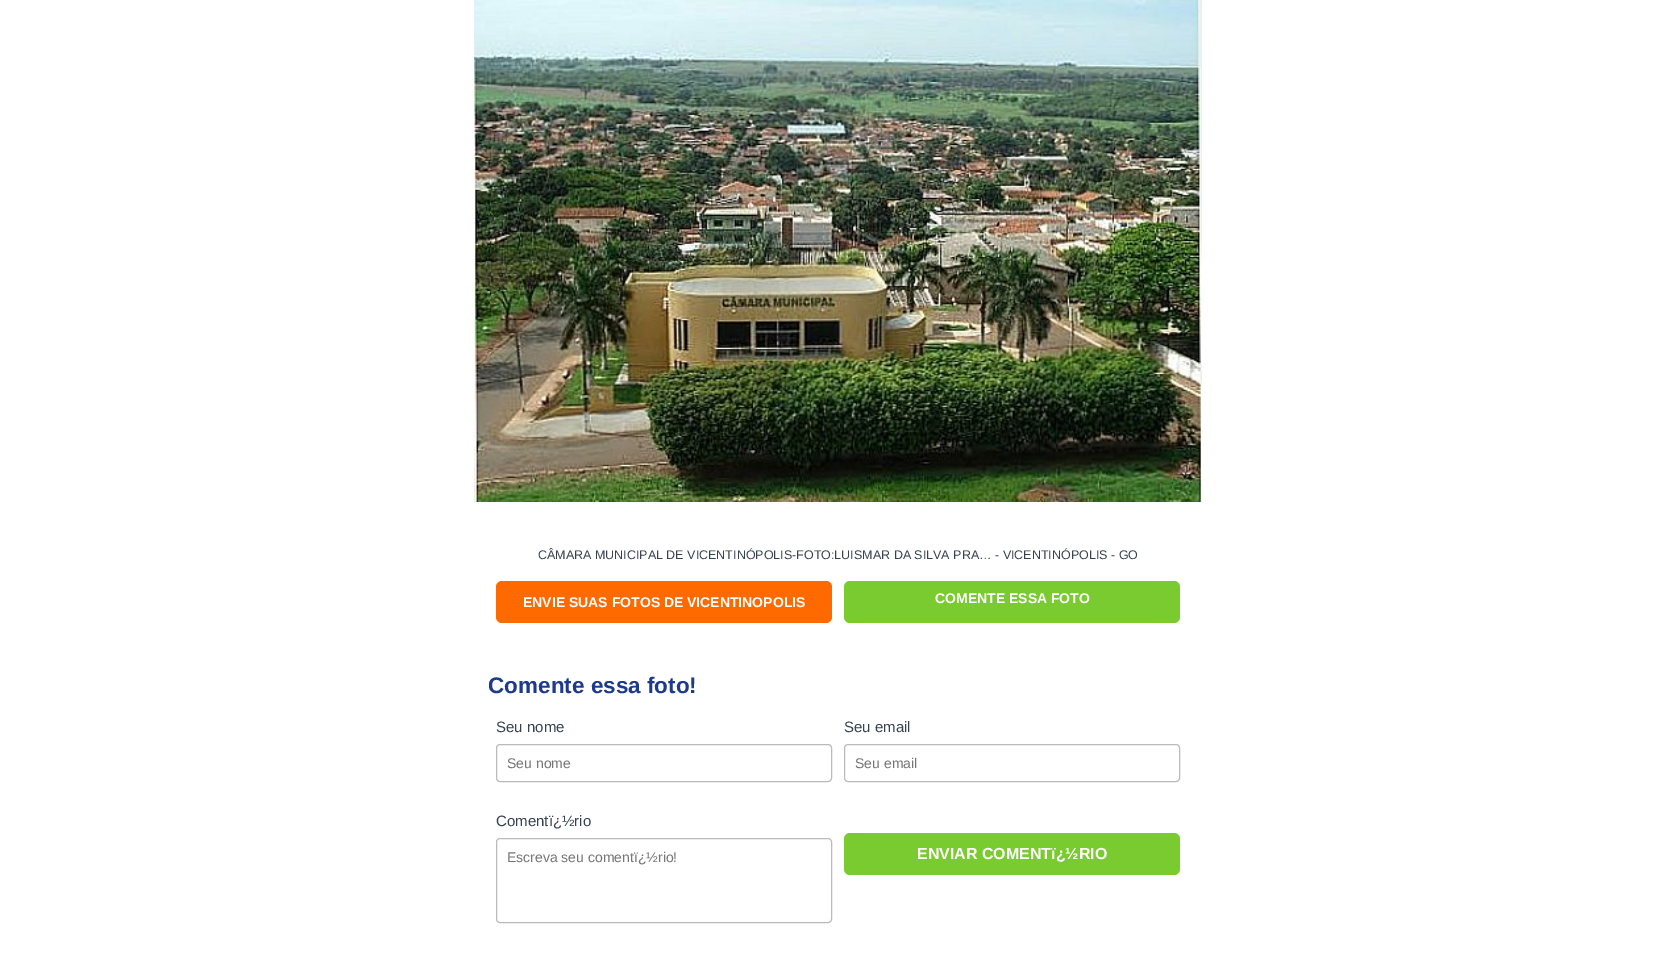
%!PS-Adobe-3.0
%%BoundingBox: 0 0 1676 978
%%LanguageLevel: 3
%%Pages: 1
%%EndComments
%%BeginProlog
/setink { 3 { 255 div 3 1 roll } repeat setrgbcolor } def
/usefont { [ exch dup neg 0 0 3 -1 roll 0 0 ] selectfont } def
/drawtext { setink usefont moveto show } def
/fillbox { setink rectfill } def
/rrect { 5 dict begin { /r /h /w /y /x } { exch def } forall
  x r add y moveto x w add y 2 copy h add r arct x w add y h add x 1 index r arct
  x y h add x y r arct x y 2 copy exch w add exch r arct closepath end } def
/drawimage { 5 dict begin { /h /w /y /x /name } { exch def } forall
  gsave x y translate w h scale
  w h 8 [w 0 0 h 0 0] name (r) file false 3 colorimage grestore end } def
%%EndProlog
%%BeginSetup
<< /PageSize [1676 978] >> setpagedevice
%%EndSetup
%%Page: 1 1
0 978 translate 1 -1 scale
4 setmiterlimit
0 0 1676 978 255 255 255 fillbox
(assets/img1.rgb) 474 0 728 502 drawimage
(CÂMARA MUNICIPAL DE VICENTINÓPOLIS-FOTO:LUISMAR DA SILVA PRA… - VICENTINÓPOLIS - GO) 538 559 /LiberationSans-Regular 12.5 55 65 81 drawtext
255 106 0 setink
496 581 336 42 6 rrect fill
(ENVIE SUAS FOTOS DE VICENTINOPOLIS) 523 607 /LiberationSans-Bold 14 255 255 255 drawtext
122 203 47 setink
844 581 336 42 6 rrect fill
(COMENTE ESSA FOTO) 935 603 /LiberationSans-Bold 14 255 255 255 drawtext
(Comente essa foto!) 488 693 /LiberationSans-Bold 22.5 30 58 138 drawtext
(Seu nome) 496 732 /LiberationSans-Regular 15 55 65 81 drawtext
187 187 187 setink
496.5 744.5 335 37 3.5 rrect stroke
(Seu nome) 507 768 /LiberationSans-Regular 14 117 117 117 drawtext
(Seu email) 844 732 /LiberationSans-Regular 15 55 65 81 drawtext
187 187 187 setink
844.5 744.5 335 37 3.5 rrect stroke
(Seu email) 855 768 /LiberationSans-Regular 14 117 117 117 drawtext
(Comentï¿½rio) 496 826 /LiberationSans-Regular 15 55 65 81 drawtext
187 187 187 setink
496.5 838.5 335 84 3.5 rrect stroke
(Escreva seu comentï¿½rio!) 507 862 /LiberationSans-Regular 14 117 117 117 drawtext
122 203 47 setink
844 833 336 42 6 rrect fill
(ENVIAR COMENTï¿½RIO) 917 859 /LiberationSans-Bold 16 255 255 255 drawtext
showpage
%%EOF
